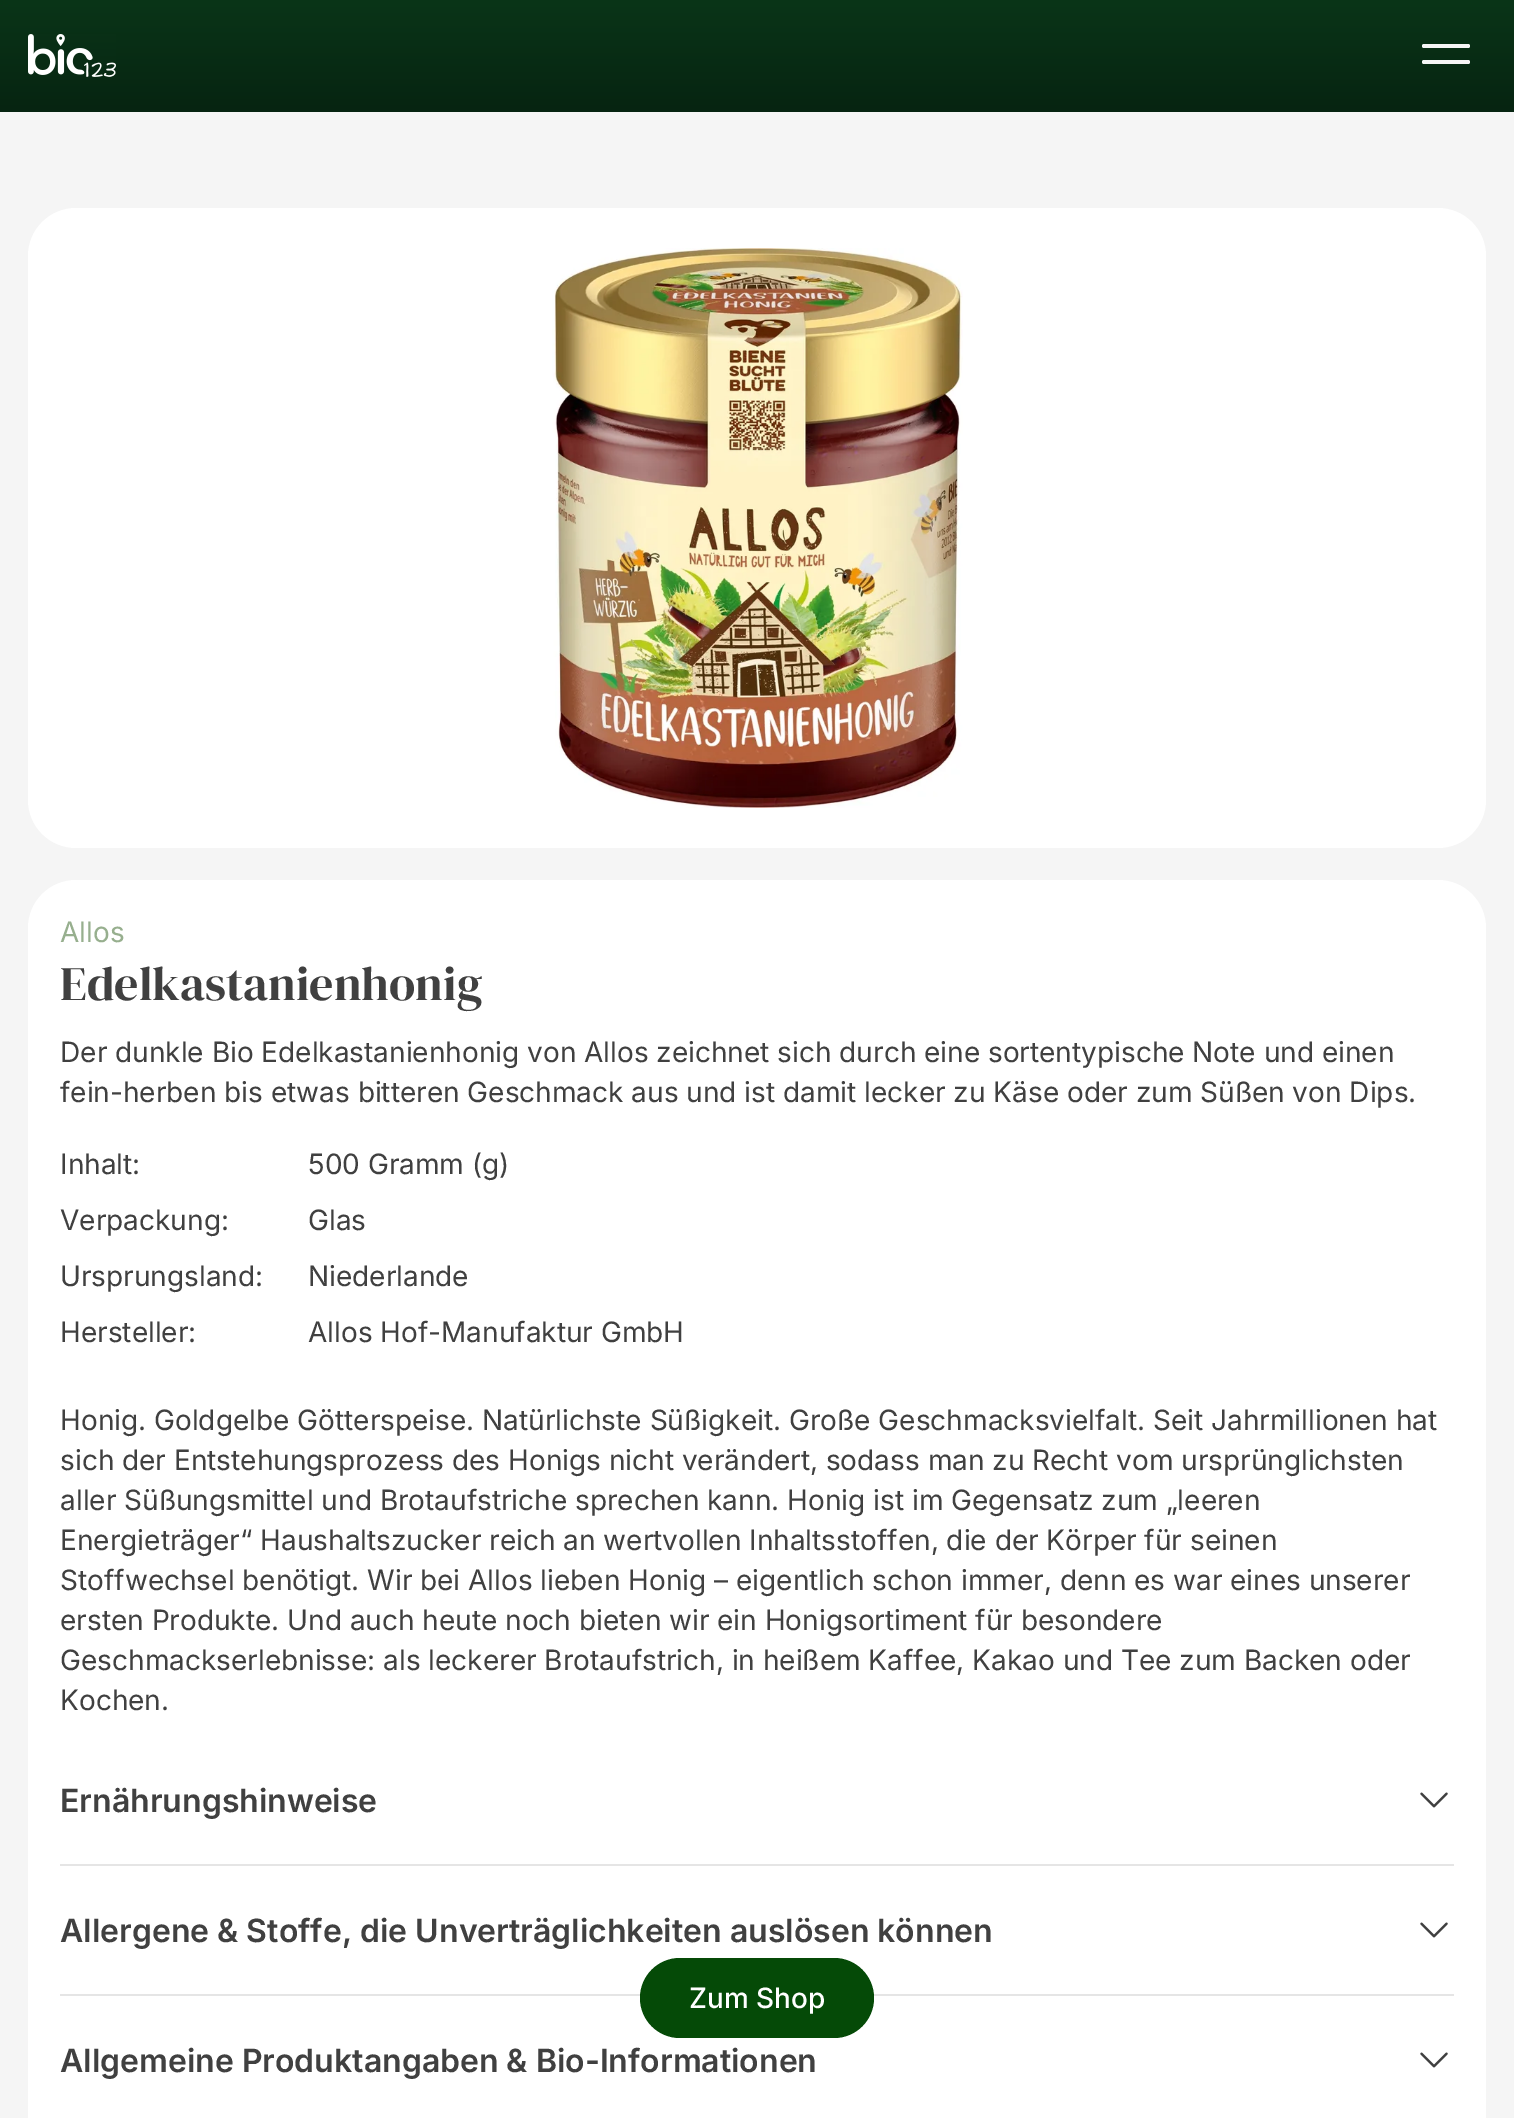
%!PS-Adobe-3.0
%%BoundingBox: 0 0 1514 2118
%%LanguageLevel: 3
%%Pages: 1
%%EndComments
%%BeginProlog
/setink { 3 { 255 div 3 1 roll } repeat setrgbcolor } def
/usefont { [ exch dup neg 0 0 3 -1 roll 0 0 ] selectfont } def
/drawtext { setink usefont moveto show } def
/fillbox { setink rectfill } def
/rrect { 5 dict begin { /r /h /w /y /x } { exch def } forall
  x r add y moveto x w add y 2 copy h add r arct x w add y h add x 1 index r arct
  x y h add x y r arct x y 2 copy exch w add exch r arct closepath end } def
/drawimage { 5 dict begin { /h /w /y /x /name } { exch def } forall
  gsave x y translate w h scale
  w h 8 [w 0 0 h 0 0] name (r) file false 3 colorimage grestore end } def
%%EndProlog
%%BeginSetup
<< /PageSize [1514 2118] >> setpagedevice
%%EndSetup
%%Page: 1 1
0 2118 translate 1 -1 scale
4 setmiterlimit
0 0 1514 2118 245 245 245 fillbox
gsave 0 0 moveto 1514 0 lineto 1514 112 lineto 0 112 lineto closepath clip newpath
<< /ShadingType 2 /ColorSpace /DeviceRGB /Coords [757 0 757 112] /Extend [true true] /Function << /FunctionType 2 /Domain [0 1] /C0 [0.039 0.208 0.094] /C1 [0.024 0.141 0.067] /N 1 >> >> shfill grestore
(assets/img1.rgb) 28 34 88 43 drawimage
1422 44 48 4 2 rrect fill
1422 60 48 4 2 rrect fill
255 255 255 setink
28 880 1458 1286 48 rrect fill
(Allos) 60 942 /Inter-Regular 28 151 175 142 drawtext
(Edelkastanienhonig) 60 1000 /DMSerifDisplay-Regular 48 64 64 64 drawtext
(Der dunkle Bio Edelkastanienhonig von Allos zeichnet sich durch eine sortentypische Note und einen) 60 1062 /Inter-Regular 28 64 64 64 drawtext
(fein-herben bis etwas bitteren Geschmack aus und ist damit lecker zu Käse oder zum Süßen von Dips.) 60 1102 /Inter-Regular 28 64 64 64 drawtext
(Inhalt:) 60 1174 /Inter-Regular 28 64 64 64 drawtext
(500 Gramm \(g\)) 308 1174 /Inter-Regular 28 64 64 64 drawtext
(Verpackung:) 60 1230 /Inter-Regular 28 64 64 64 drawtext
(Glas) 308 1230 /Inter-Regular 28 64 64 64 drawtext
(Ursprungsland:) 60 1286 /Inter-Regular 28 64 64 64 drawtext
(Niederlande) 308 1286 /Inter-Regular 28 64 64 64 drawtext
(Hersteller:) 60 1342 /Inter-Regular 28 64 64 64 drawtext
(Allos Hof-Manufaktur GmbH) 308 1342 /Inter-Regular 28 64 64 64 drawtext
(Honig. Goldgelbe Götterspeise. Natürlichste Süßigkeit. Große Geschmacksvielfalt. Seit Jahrmillionen hat) 60 1430 /Inter-Regular 28 64 64 64 drawtext
(sich der Entstehungsprozess des Honigs nicht verändert, sodass man zu Recht vom ursprünglichsten) 60 1470 /Inter-Regular 28 64 64 64 drawtext
(aller Süßungsmittel und Brotaufstriche sprechen kann. Honig ist im Gegensatz zum „leeren) 60 1510 /Inter-Regular 28 64 64 64 drawtext
(Energieträger“ Haushaltszucker reich an wertvollen Inhaltsstoffen, die der Körper für seinen) 60 1550 /Inter-Regular 28 64 64 64 drawtext
(Stoffwechsel benötigt. Wir bei Allos lieben Honig – eigentlich schon immer, denn es war eines unserer) 60 1590 /Inter-Regular 28 64 64 64 drawtext
(ersten Produkte. Und auch heute noch bieten wir ein Honigsortiment für besondere) 60 1630 /Inter-Regular 28 64 64 64 drawtext
(Geschmackserlebnisse: als leckerer Brotaufstrich, in heißem Kaffee, Kakao und Tee zum Backen oder) 60 1670 /Inter-Regular 28 64 64 64 drawtext
(Kochen.) 60 1710 /Inter-Regular 28 64 64 64 drawtext
60 1864 1394 2 229 229 229 fillbox
(Ernährungshinweise) 60 1812 /Inter-SemiBold 32 64 64 64 drawtext
(assets/img2.rgb) 1420 1792 28 16 drawimage
60 1994 1394 2 229 229 229 fillbox
(Allergene & Stoffe, die Unverträglichkeiten auslösen können) 60 1942 /Inter-SemiBold 32 64 64 64 drawtext
(assets/img2.rgb) 1420 1922 28 16 drawimage
(Allgemeine Produktangaben & Bio-Informationen) 60 2072 /Inter-SemiBold 32 64 64 64 drawtext
(assets/img2.rgb) 1420 2052 28 16 drawimage
255 255 255 setink
28 208 1458 640 48 rrect fill
(assets/img3.rgb) 552 248 411 560 drawimage
5 74 7 setink
640 1958 234 80 40 rrect fill
(Zum Shop) 689 2008 /Inter-Medium 28 255 255 255 drawtext
showpage
%%EOF
